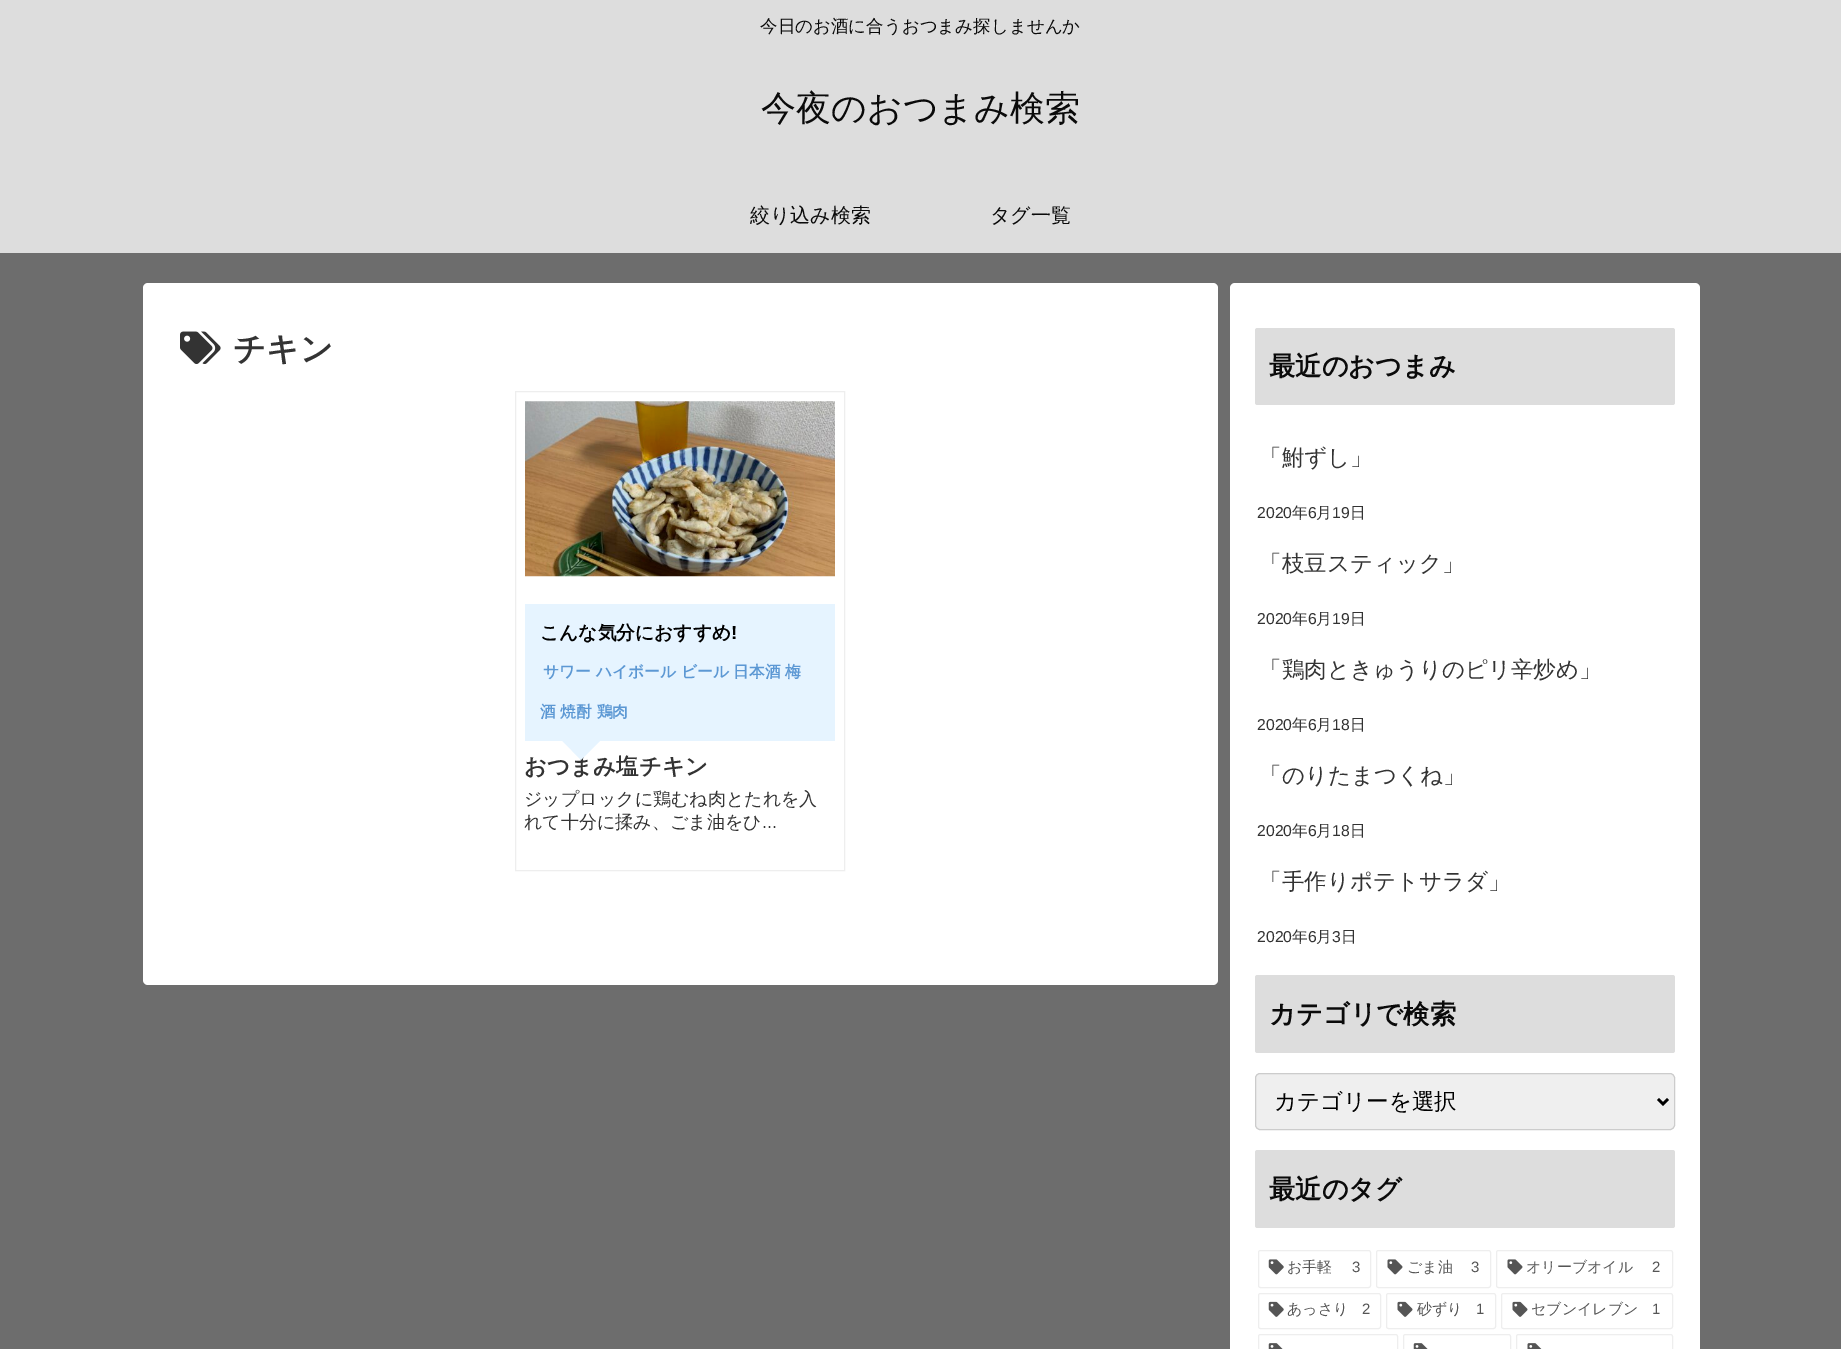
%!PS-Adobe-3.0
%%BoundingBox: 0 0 1841 1349
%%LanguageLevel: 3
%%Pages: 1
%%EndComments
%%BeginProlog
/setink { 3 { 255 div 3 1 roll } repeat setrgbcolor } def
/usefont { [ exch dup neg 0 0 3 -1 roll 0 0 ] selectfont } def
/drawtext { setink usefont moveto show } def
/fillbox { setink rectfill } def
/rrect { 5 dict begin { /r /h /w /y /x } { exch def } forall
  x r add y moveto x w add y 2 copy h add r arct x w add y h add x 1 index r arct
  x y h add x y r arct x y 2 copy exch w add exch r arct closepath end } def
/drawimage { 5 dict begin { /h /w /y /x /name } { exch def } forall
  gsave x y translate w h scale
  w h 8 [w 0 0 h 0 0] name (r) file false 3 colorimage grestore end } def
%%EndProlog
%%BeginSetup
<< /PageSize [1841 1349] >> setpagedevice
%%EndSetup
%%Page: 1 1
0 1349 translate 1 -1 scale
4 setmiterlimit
0 0 1841 1349 109 109 109 fillbox
0 0 1841 253 221 221 221 fillbox
(今日のお酒に合うおつまみ探しませんか) 760 32 /WenQuanYiZenHei-Medium 17.5 10 10 10 drawtext
(今夜のおつまみ検索) 761 120 /WenQuanYiZenHei-Medium 35 10 10 10 drawtext
(絞り込み検索) 750 222 /WenQuanYiZenHei-Medium 20 10 10 10 drawtext
(タグ一覧) 990 222 /WenQuanYiZenHei-Medium 20 10 10 10 drawtext
255 255 255 setink
143 283 1075 702 5 rrect fill
(assets/img1.rgb) 180 331 41 33 drawimage
(チキン) 233 360 /WenQuanYiZenHei-Bold 32.5 51 51 51 drawtext
238 238 238 setink
515.5 391.5 329 479 rectstroke
(assets/img2.rgb) 525 401 310 176 drawimage
525 604 310 137 230 244 255 fillbox
(こんな気分におすすめ) 540 639 /WenQuanYiZenHei-Bold 18.75 0 0 0 drawtext
(!) 731 639 /LiberationSans-Bold 18.75 0 0 0 drawtext
(サワー ハイボール ビール 日本酒 梅) 543 677 /WenQuanYiZenHei-Bold 15.75 92 152 212 drawtext
(酒 焼酎 鶏肉) 540 717 /WenQuanYiZenHei-Bold 15.75 92 152 212 drawtext
(おつまみ塩チキン) 524 774 /WenQuanYiZenHei-Bold 22.5 51 51 51 drawtext
230 244 255 setink
562.5 741 moveto 600 741 lineto 581 760 lineto closepath fill
(ジップロックに鶏むね肉とたれを入) 524 805 /WenQuanYiZenHei-Medium 18 51 51 51 drawtext
(れて十分に揉み、ごま油をひ) 524 828 /WenQuanYiZenHei-Medium 18 51 51 51 drawtext
(...) 762 828 /LiberationSans-Regular 18 51 51 51 drawtext
255 255 255 setink
1230 283 470 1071 5 rrect fill
221 221 221 setink
1255 328 420 77 2.5 rrect fill
(最近のおつまみ) 1269 375 /WenQuanYiZenHei-Bold 26.25 10 10 10 drawtext
(「鮒ずし」) 1259 465 /WenQuanYiZenHei-Medium 22.5 51 51 51 drawtext
(2020) 1257 518 /LiberationSans-Regular 15.75 51 51 51 drawtext
(年) 1292 518 /WenQuanYiZenHei-Medium 15.75 51 51 51 drawtext
(6) 1308 518 /LiberationSans-Regular 15.75 51 51 51 drawtext
(月) 1316 518 /WenQuanYiZenHei-Medium 15.75 51 51 51 drawtext
(19) 1332 518 /LiberationSans-Regular 15.75 51 51 51 drawtext
(日) 1350 518 /WenQuanYiZenHei-Medium 15.75 51 51 51 drawtext
(「枝豆スティック」) 1259 571 /WenQuanYiZenHei-Medium 22.5 51 51 51 drawtext
(2020) 1257 624 /LiberationSans-Regular 15.75 51 51 51 drawtext
(年) 1292 624 /WenQuanYiZenHei-Medium 15.75 51 51 51 drawtext
(6) 1308 624 /LiberationSans-Regular 15.75 51 51 51 drawtext
(月) 1316 624 /WenQuanYiZenHei-Medium 15.75 51 51 51 drawtext
(19) 1332 624 /LiberationSans-Regular 15.75 51 51 51 drawtext
(日) 1350 624 /WenQuanYiZenHei-Medium 15.75 51 51 51 drawtext
(「鶏肉ときゅうりのピリ辛炒め」) 1259 677 /WenQuanYiZenHei-Medium 22.5 51 51 51 drawtext
(2020) 1257 730 /LiberationSans-Regular 15.75 51 51 51 drawtext
(年) 1292 730 /WenQuanYiZenHei-Medium 15.75 51 51 51 drawtext
(6) 1308 730 /LiberationSans-Regular 15.75 51 51 51 drawtext
(月) 1316 730 /WenQuanYiZenHei-Medium 15.75 51 51 51 drawtext
(18) 1332 730 /LiberationSans-Regular 15.75 51 51 51 drawtext
(日) 1350 730 /WenQuanYiZenHei-Medium 15.75 51 51 51 drawtext
(「のりたまつくね」) 1259 783 /WenQuanYiZenHei-Medium 22.5 51 51 51 drawtext
(2020) 1257 836 /LiberationSans-Regular 15.75 51 51 51 drawtext
(年) 1292 836 /WenQuanYiZenHei-Medium 15.75 51 51 51 drawtext
(6) 1308 836 /LiberationSans-Regular 15.75 51 51 51 drawtext
(月) 1316 836 /WenQuanYiZenHei-Medium 15.75 51 51 51 drawtext
(18) 1332 836 /LiberationSans-Regular 15.75 51 51 51 drawtext
(日) 1350 836 /WenQuanYiZenHei-Medium 15.75 51 51 51 drawtext
(「手作りポテトサラダ」) 1259 889 /WenQuanYiZenHei-Medium 22.5 51 51 51 drawtext
(2020) 1257 942 /LiberationSans-Regular 15.75 51 51 51 drawtext
(年) 1292 942 /WenQuanYiZenHei-Medium 15.75 51 51 51 drawtext
(6) 1308 942 /LiberationSans-Regular 15.75 51 51 51 drawtext
(月) 1316 942 /WenQuanYiZenHei-Medium 15.75 51 51 51 drawtext
(3) 1332 942 /LiberationSans-Regular 15.75 51 51 51 drawtext
(日) 1341 942 /WenQuanYiZenHei-Medium 15.75 51 51 51 drawtext
221 221 221 setink
1255 975 420 78 2.5 rrect fill
(カテゴリで検索) 1269 1023 /WenQuanYiZenHei-Bold 26.25 10 10 10 drawtext
239 239 239 setink
1255.5 1073.5 419 56 4.5 rrect gsave fill grestore
204 204 204 setink
stroke
0 0 0 setink
2.5 setlinewidth
1658 1099 moveto 1663 1104 lineto 1668 1099 lineto stroke
(カテゴリーを選択) 1274 1109 /WenQuanYiZenHei-Medium 22.5 0 0 0 drawtext
221 221 221 setink
1255 1150 420 78 2.5 rrect fill
(最近のタグ) 1269 1198 /WenQuanYiZenHei-Bold 26.25 10 10 10 drawtext
238 238 238 setink
1 setlinewidth
1258.5 1250.5 112 37 2 rrect stroke
(assets/img3.rgb) 1268 1259 16 16 drawimage
(お手軽) 1287 1272 /WenQuanYiZenHei-Medium 15 85 85 85 drawtext
(3) 1352 1272 /LiberationSans-Regular 15 85 85 85 drawtext
238 238 238 setink
1376.5 1250.5 114 37 2 rrect stroke
(assets/img4.rgb) 1387 1259 16 16 drawimage
(ごま油) 1407 1272 /WenQuanYiZenHei-Medium 15 85 85 85 drawtext
(3) 1471 1272 /LiberationSans-Regular 15 85 85 85 drawtext
238 238 238 setink
1496.5 1250.5 176 37 2 rrect stroke
(assets/img4.rgb) 1507 1259 16 16 drawimage
(オリーブオイル) 1526 1272 /WenQuanYiZenHei-Medium 15 85 85 85 drawtext
(2) 1652 1272 /LiberationSans-Regular 15 85 85 85 drawtext
238 238 238 setink
1258.5 1293.5 122 35 2 rrect stroke
(assets/img5.rgb) 1268 1301 16 16 drawimage
(あっさり) 1287 1314 /WenQuanYiZenHei-Medium 15 85 85 85 drawtext
(2) 1362 1314 /LiberationSans-Regular 15 85 85 85 drawtext
238 238 238 setink
1386.5 1293.5 109 35 2 rrect stroke
(assets/img6.rgb) 1397 1301 16 16 drawimage
(砂ずり) 1417 1314 /WenQuanYiZenHei-Medium 15 85 85 85 drawtext
(1) 1476 1314 /LiberationSans-Regular 15 85 85 85 drawtext
238 238 238 setink
1501.5 1293.5 171 35 2 rrect stroke
(assets/img6.rgb) 1512 1301 16 16 drawimage
(セブンイレブン) 1531 1314 /WenQuanYiZenHei-Medium 15 85 85 85 drawtext
(1) 1652 1314 /LiberationSans-Regular 15 85 85 85 drawtext
238 238 238 setink
1258.5 1334.5 139 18 2 rrect stroke
(assets/img7.rgb) 1268 1343 15 6 drawimage
1403.5 1334.5 107 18 2 rrect stroke
(assets/img7.rgb) 1413 1343 15 6 drawimage
1516.5 1334.5 156 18 2 rrect stroke
(assets/img8.rgb) 1527 1343 15 6 drawimage
showpage
%%EOF
